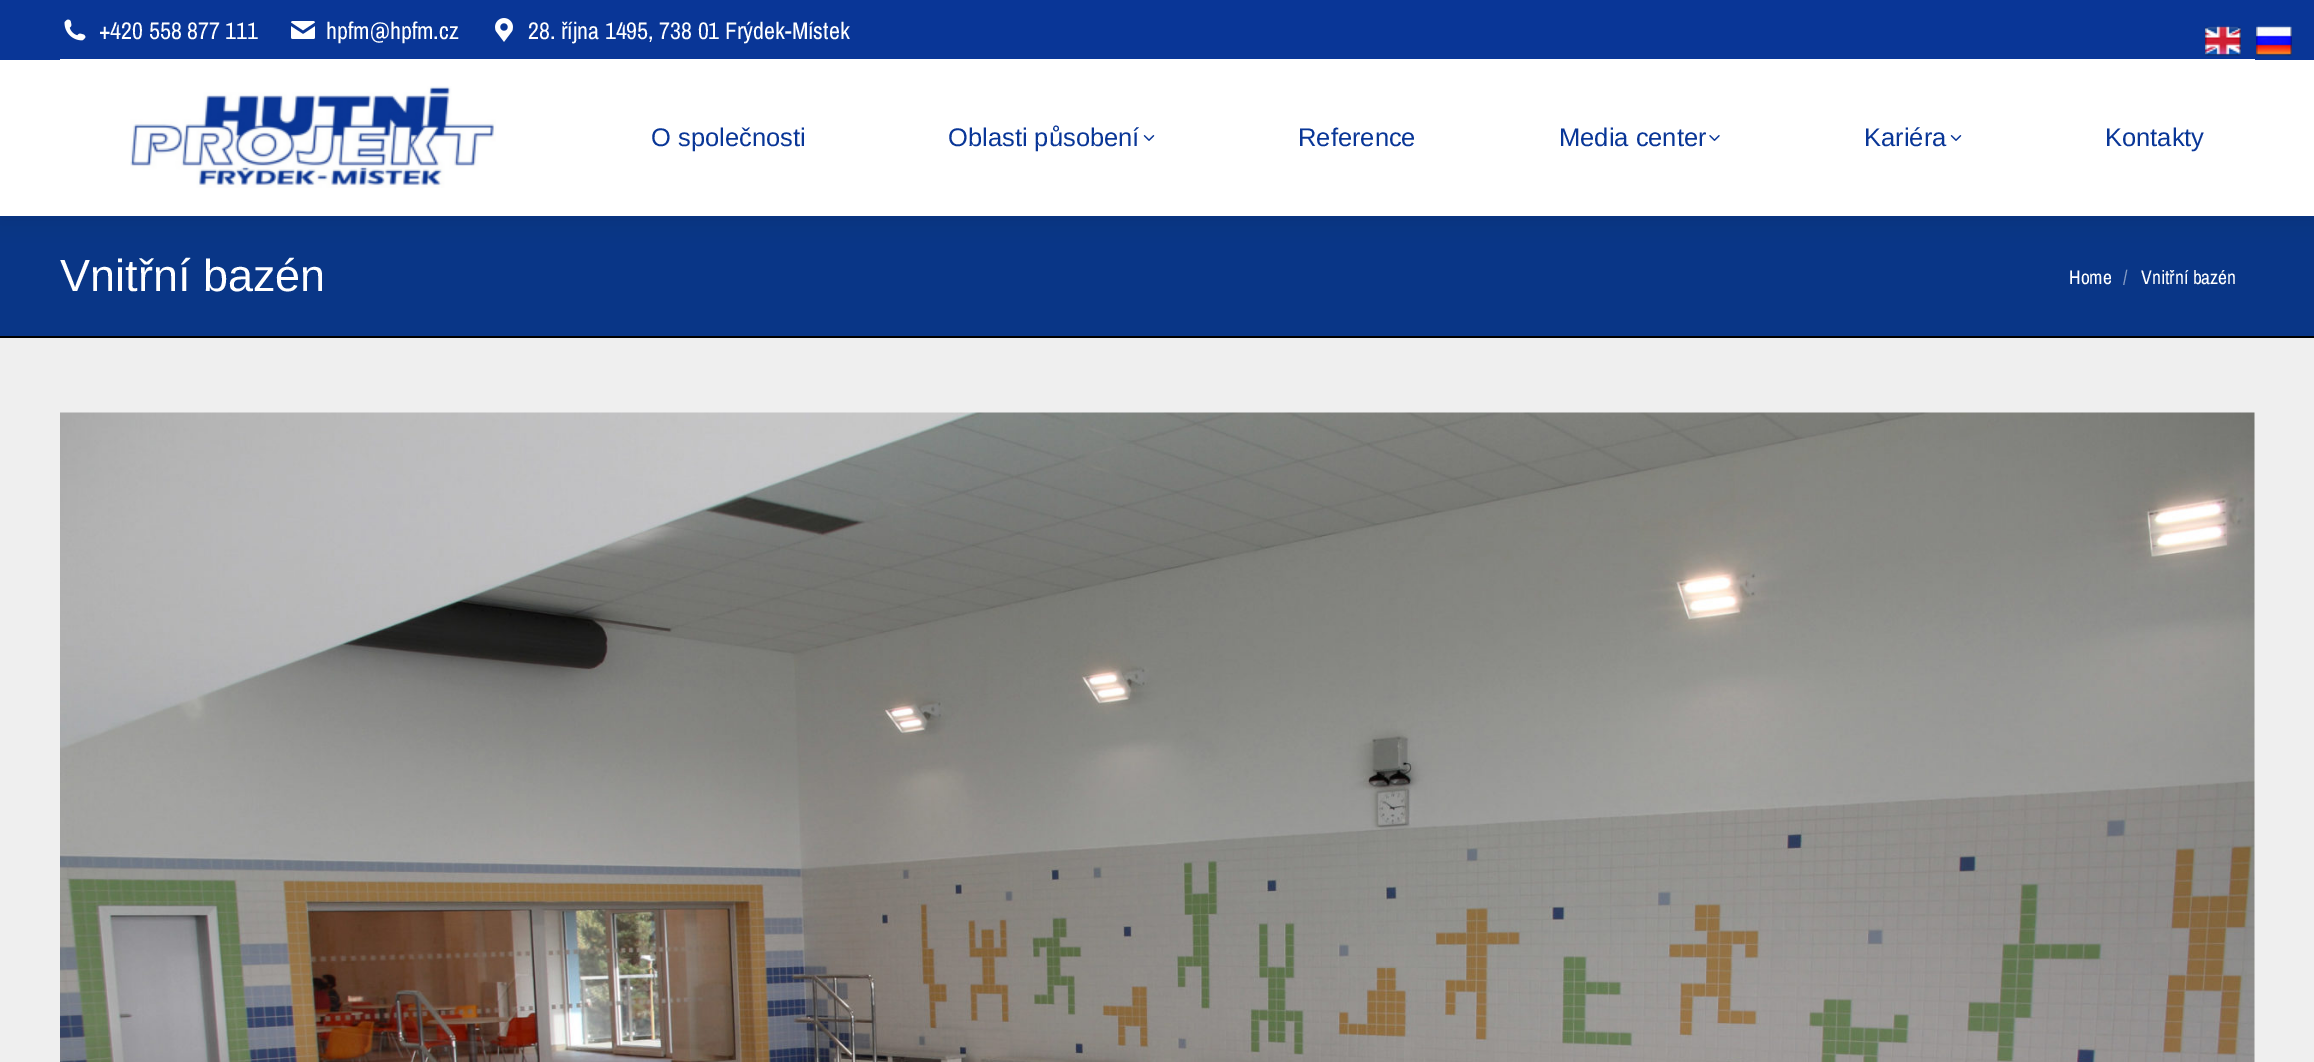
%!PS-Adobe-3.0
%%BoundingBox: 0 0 2314 1062
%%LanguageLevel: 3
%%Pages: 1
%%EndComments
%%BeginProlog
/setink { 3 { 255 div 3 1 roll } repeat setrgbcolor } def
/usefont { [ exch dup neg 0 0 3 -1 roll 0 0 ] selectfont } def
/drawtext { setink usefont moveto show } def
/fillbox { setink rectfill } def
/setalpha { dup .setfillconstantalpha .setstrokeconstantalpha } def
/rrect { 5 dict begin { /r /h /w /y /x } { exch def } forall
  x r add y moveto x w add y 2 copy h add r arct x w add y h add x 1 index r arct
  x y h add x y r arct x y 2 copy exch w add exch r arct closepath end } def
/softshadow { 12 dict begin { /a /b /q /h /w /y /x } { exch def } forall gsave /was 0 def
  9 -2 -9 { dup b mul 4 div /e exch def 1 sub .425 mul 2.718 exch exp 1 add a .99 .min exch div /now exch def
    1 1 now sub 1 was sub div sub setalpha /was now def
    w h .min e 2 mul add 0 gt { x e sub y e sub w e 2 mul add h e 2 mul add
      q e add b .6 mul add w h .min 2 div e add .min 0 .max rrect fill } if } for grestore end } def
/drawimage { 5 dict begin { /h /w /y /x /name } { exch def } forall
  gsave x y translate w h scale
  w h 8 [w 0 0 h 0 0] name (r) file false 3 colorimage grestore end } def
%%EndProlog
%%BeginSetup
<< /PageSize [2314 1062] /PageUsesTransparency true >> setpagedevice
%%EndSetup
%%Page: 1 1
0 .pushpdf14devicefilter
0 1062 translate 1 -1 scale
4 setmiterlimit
0 0 2314 1062 239 239 239 fillbox
0 216 2314 120 9 54 135 fillbox
0 0 0 setink
-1 -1 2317 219 0 11 0.07 softshadow
0 60 2314 156 255 255 255 fillbox
0 0 2314 60 9 54 151 fillbox
(assets/img1.rgb) 64 19 22 22 drawimage
(+420 558 877 111) 99 39 /ArchivoNarrow-Regular 24 255 255 255 drawtext
(assets/img2.rgb) 291 21 24 18 drawimage
(hpfm@hpfm.cz) 326 39 /ArchivoNarrow-Regular 24 255 255 255 drawtext
(assets/img3.rgb) 495 18 18 24 drawimage
(28. října 1495, 738 01 Frýdek-Místek) 528 39 /ArchivoNarrow-Regular 24 255 255 255 drawtext
60 59 2195 1 255 255 255 fillbox
(assets/img4.rgb) 130 86 366 102 drawimage
(O společnosti) 651 146 /LiberationSans-Regular 25.5 9 54 151 drawtext
(Oblasti působení) 948 146 /LiberationSans-Regular 25.5 9 54 151 drawtext
(assets/img5.rgb) 1143 135 12 6 drawimage
(Reference) 1298 146 /LiberationSans-Regular 25.5 9 54 151 drawtext
(Media center) 1559 146 /LiberationSans-Regular 25.5 9 54 151 drawtext
(assets/img6.rgb) 1709 135 11 6 drawimage
(Kariéra) 1864 146 /LiberationSans-Regular 25.5 9 54 151 drawtext
(assets/img5.rgb) 1950 135 12 6 drawimage
(Kontakty) 2105 146 /LiberationSans-Regular 25.5 9 54 151 drawtext
0 336 2314 2 0 0 0 fillbox
(Vnitřní bazén) 60 291 /LiberationSans-Regular 45 255 255 255 drawtext
(Home) 2069 284 /ArchivoNarrow-Regular 19.5 255 255 255 drawtext
(/) 2123 284 /ArchivoNarrow-Regular 19.5 132 155 195 drawtext
(Vnitřní bazén) 2141 284 /ArchivoNarrow-Regular 19.5 255 255 255 drawtext
(assets/img7.rgb) 60 412 2195 650 drawimage
(assets/img8.rgb) 2205 25 36 31 drawimage
(assets/img9.rgb) 2256 25 36 31 drawimage
.poppdf14devicefilter showpage
%%EOF
